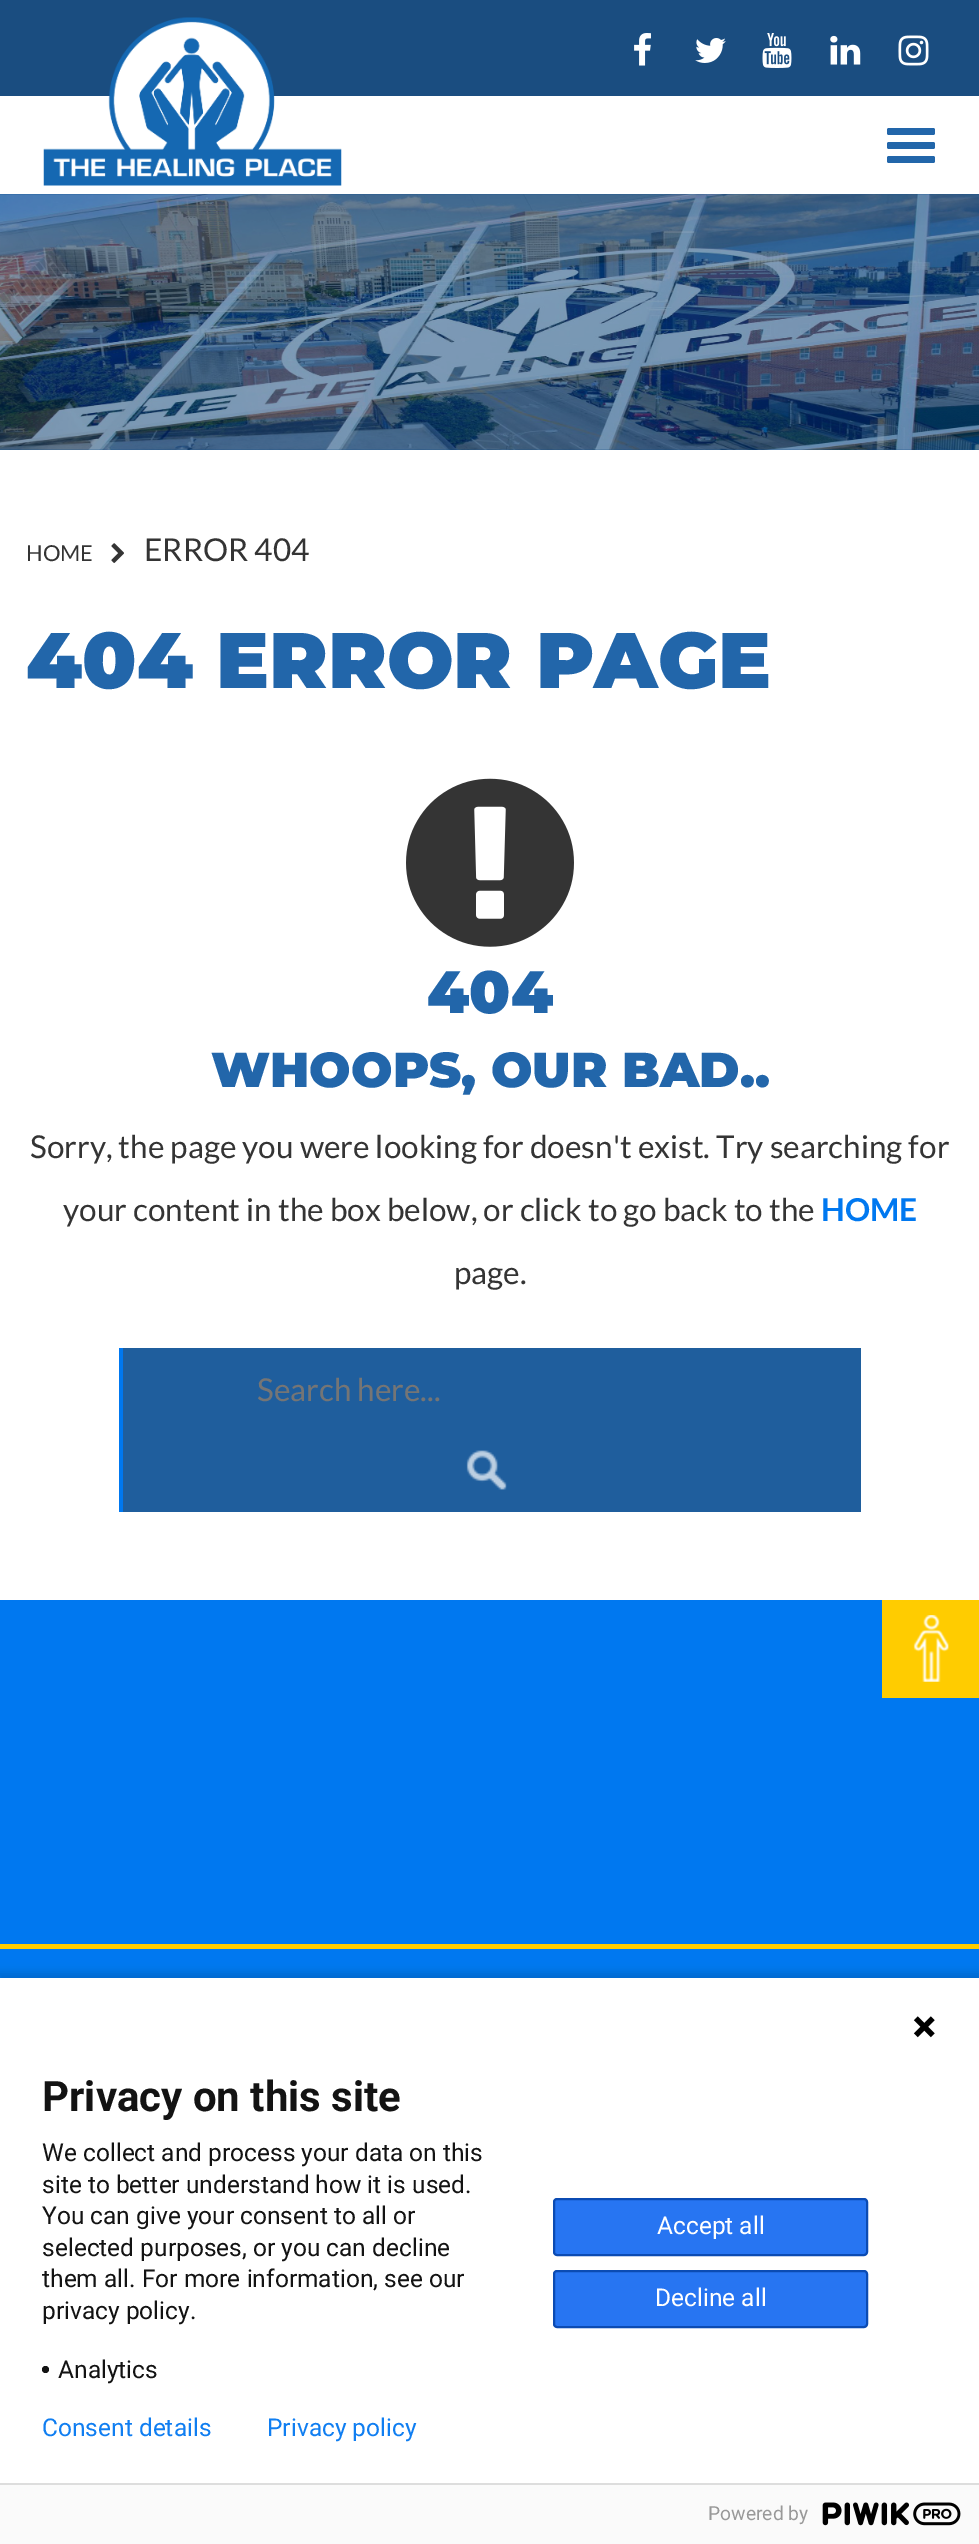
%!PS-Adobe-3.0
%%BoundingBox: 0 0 979 2544
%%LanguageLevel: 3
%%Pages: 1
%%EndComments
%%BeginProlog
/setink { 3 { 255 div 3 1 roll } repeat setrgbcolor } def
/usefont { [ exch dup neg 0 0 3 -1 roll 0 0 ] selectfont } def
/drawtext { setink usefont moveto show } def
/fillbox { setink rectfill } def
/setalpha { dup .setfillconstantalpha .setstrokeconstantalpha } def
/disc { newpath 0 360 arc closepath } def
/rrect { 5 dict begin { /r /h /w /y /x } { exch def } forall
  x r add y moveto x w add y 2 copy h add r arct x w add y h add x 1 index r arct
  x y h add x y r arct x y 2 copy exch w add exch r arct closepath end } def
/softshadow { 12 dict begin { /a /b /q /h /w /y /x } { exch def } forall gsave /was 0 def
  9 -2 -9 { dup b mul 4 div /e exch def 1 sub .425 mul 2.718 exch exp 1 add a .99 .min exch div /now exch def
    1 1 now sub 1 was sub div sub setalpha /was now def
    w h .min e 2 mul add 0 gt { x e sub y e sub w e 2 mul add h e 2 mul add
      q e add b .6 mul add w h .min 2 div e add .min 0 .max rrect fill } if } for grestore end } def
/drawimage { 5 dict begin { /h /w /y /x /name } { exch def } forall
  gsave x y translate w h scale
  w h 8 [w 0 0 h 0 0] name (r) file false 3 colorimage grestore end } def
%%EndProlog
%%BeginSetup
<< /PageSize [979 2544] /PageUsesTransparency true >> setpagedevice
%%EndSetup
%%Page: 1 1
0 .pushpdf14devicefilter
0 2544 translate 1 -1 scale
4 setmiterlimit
0 0 979 2544 255 255 255 fillbox
0 0 979 96 26 77 128 fillbox
(assets/img1.rgb) 43 17 299 169 drawimage
(assets/img2.rgb) 634 33 17 33 drawimage
(assets/img3.rgb) 695 38 31 25 drawimage
(assets/img4.rgb) 762 33 30 35 drawimage
(assets/img5.rgb) 830 35 31 30 drawimage
(assets/img6.rgb) 898 35 31 31 drawimage
34 102 170 setink
887 128 48 7 2 rrect fill
887 142 48 7 2 rrect fill
887 156 48 7 2 rrect fill
(assets/img7.rgb) 0 194 979 256 drawimage
(HOME) 26 561 /Lato-Regular 22 52 52 52 drawtext
(assets/img8.rgb) 111 543 13 20 drawimage
(ERROR 404) 144 561 /Lato-Regular 31.5 52 52 52 drawtext
(404 ERROR PAGE) 26 688 /Montserrat-Black 78.75 34 102 170 drawtext
(assets/img9.rgb) 406 778 168 169 drawimage
(404) 427 1013 /Montserrat-Black 59.5 34 102 170 drawtext
(WHOOPS, OUR BAD..) 211 1087 /Montserrat-Black 49 34 102 170 drawtext
(Sorry, the page you were looking for doesn't exist. Try searching for) 30 1158 /Lato-Regular 31.5 52 52 52 drawtext
(your content in the box below, or click to go back to the) 63 1221 /Lato-Regular 31.5 52 52 52 drawtext
(HOME) 821 1221 /Lato-Bold 31.5 0 120 240 drawtext
(page.) 454 1284 /Lato-Regular 31.5 52 52 52 drawtext
123 1348 738 164 31 94 157 fillbox
119 1348 4 164 0 120 240 fillbox
(Search here...) 257 1401 /Lato-Regular 31.5 117 117 117 drawtext
(assets/img10.rgb) 466 1450 41 40 drawimage
0 1600 979 378 0 120 240 fillbox
0 1944 979 5 255 204 0 fillbox
882 1600 97 98 255 204 0 fillbox
(assets/img11.rgb) 913 1615 36 67 drawimage
0 0 0 setink
-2 1972 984 571 0 4.5 0.14 softshadow
0 1978 979 505 255 255 255 fillbox
(assets/img12.rgb) 913 2016 22 22 drawimage
(Privacy on this site) 42 2111 /Roboto-Bold 42 19 19 19 drawtext
(We collect and process your data on this) 42 2161 /Roboto-Regular 24.5 19 19 19 drawtext
(site to better understand how it is used.) 42 2193 /Roboto-Regular 24.5 19 19 19 drawtext
(You can give your consent to all or) 42 2224 /Roboto-Regular 24.5 19 19 19 drawtext
(selected purposes, or you can decline) 42 2256 /Roboto-Regular 24.5 19 19 19 drawtext
(them all. For more information, see our) 42 2287 /Roboto-Regular 24.5 19 19 19 drawtext
(privacy policy.) 42 2319 /Roboto-Regular 24.5 19 19 19 drawtext
45.5 2369.5 3.5 disc fill
(Analytics) 58 2378 /Roboto-Regular 24.5 19 19 19 drawtext
39 117 242 setink
554 2199 313 56 3 rrect gsave fill grestore
11 75 179 setink
2 setlinewidth
stroke
(Accept all) 657 2234 /Roboto-Regular 24.5 255 255 255 drawtext
39 117 242 setink
554 2271 313 56 3 rrect gsave fill grestore
11 75 179 setink
stroke
(Decline all) 655 2306 /Roboto-Regular 24.5 255 255 255 drawtext
(Consent details) 42 2436 /Roboto-Regular 24.5 16 126 241 drawtext
(Privacy policy) 267 2436 /Roboto-Regular 24.5 16 126 241 drawtext
0 2485 979 59 250 250 250 fillbox
0 2483 979 2 221 221 221 fillbox
(Powered by) 708 2520 /Roboto-Regular 19.25 153 153 153 drawtext
(assets/img13.rgb) 822 2502 139 24 drawimage
.poppdf14devicefilter showpage
%%EOF
